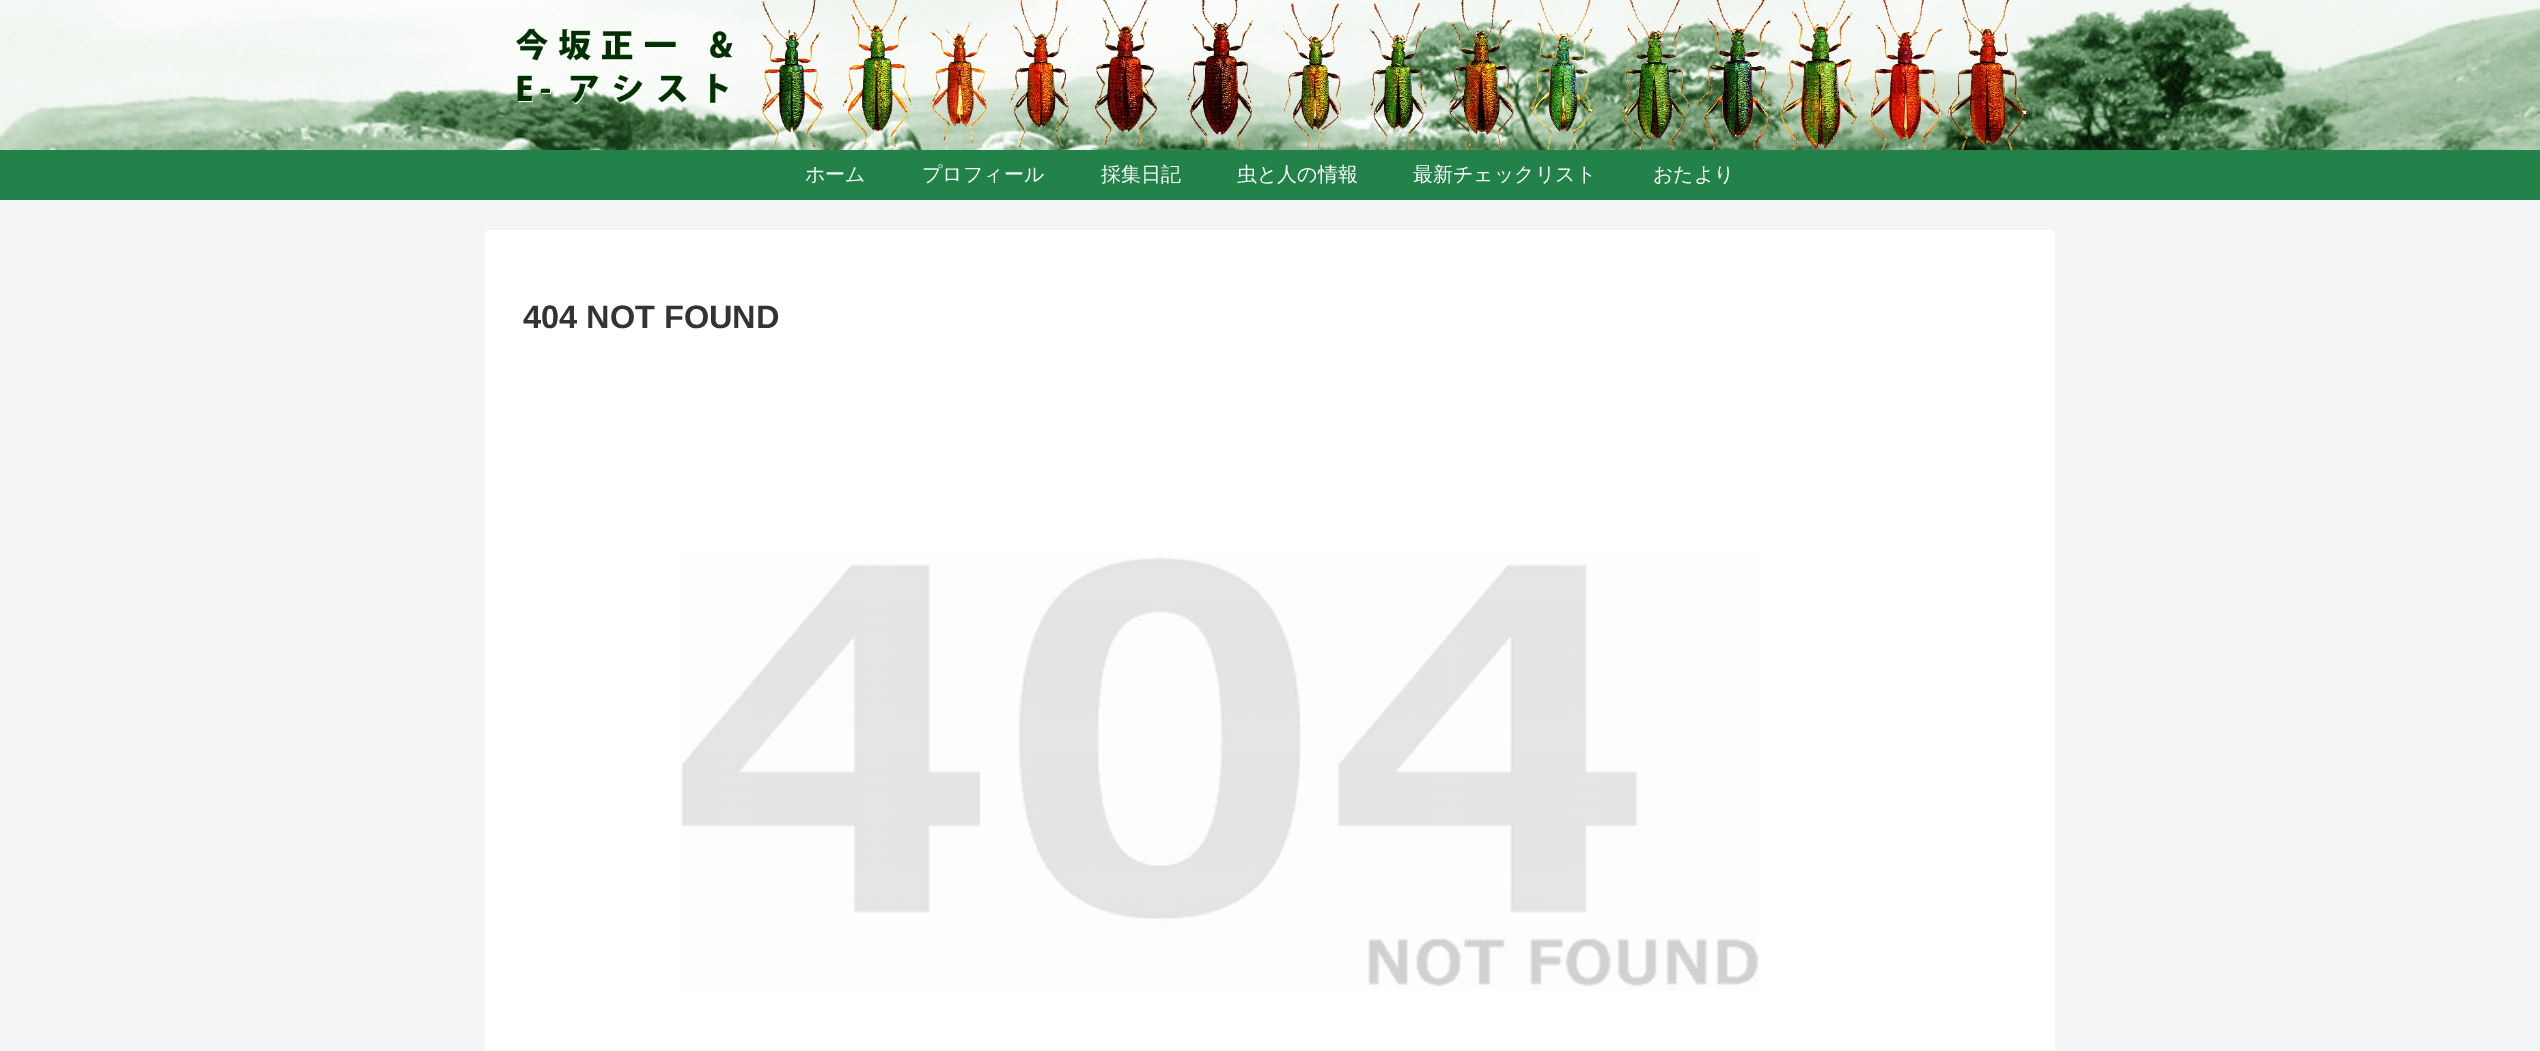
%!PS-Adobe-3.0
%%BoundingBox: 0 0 2540 1051
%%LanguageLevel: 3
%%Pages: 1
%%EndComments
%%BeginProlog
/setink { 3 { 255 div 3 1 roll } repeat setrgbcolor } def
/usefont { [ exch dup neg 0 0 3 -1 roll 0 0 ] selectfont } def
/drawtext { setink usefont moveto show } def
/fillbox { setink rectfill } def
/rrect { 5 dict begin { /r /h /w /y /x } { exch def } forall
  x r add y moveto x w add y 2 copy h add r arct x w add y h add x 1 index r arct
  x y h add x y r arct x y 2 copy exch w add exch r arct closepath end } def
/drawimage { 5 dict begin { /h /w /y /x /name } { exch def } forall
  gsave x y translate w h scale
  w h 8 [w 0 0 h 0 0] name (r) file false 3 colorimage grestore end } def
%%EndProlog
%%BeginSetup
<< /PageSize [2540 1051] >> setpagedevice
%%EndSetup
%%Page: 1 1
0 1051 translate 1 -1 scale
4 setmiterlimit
0 0 2540 1051 244 245 247 fillbox
(assets/img1.rgb) 0 0 2540 150 drawimage
(assets/img2.rgb) 516 0 1512 150 drawimage
0 150 2540 50 35 130 73 fillbox
(ホーム) 805 181 /WenQuanYiZenHei-Medium 20 255 255 255 drawtext
(プロフィール) 922 181 /WenQuanYiZenHei-Medium 20 255 255 255 drawtext
(採集日記) 1101 181 /WenQuanYiZenHei-Medium 20 255 255 255 drawtext
(虫と人の情報) 1237 181 /WenQuanYiZenHei-Medium 20 255 255 255 drawtext
(最新チェックリスト) 1413 181 /WenQuanYiZenHei-Medium 20 255 255 255 drawtext
(おたより) 1653 181 /WenQuanYiZenHei-Medium 20 255 255 255 drawtext
485 230 1570 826 5 rrect fill
(404 NOT FOUND) 523 328 /LiberationSans-Bold 32.5 51 51 51 drawtext
(assets/img3.rgb) 680 556 1079 434 drawimage
showpage
%%EOF
